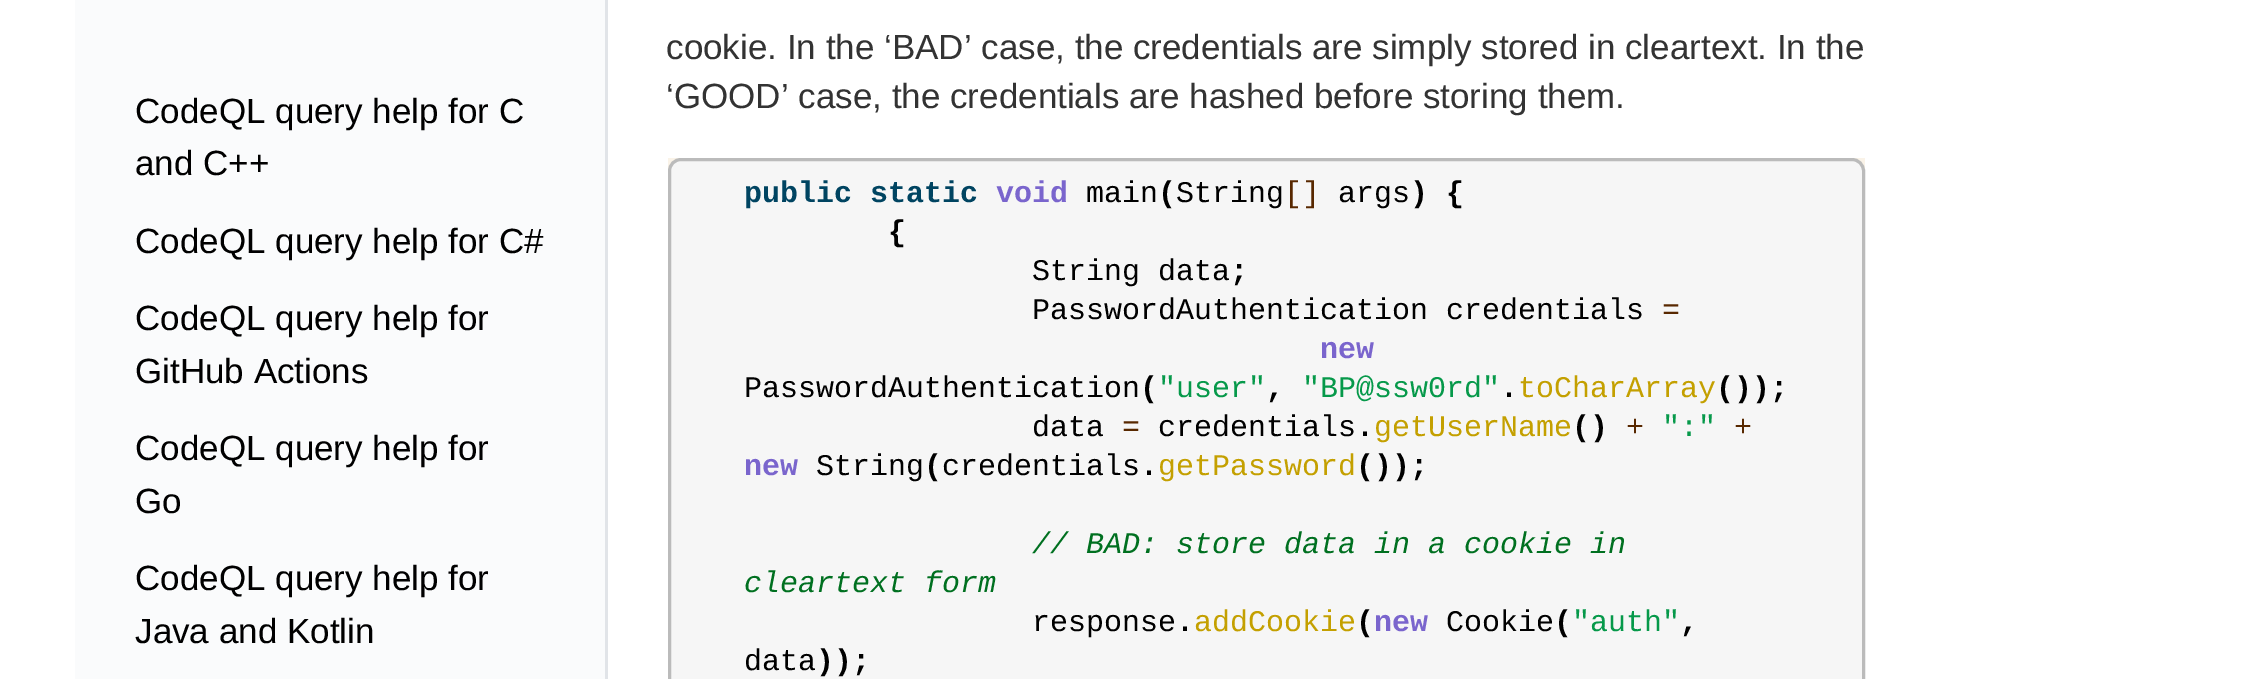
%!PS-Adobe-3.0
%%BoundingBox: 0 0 2265 679
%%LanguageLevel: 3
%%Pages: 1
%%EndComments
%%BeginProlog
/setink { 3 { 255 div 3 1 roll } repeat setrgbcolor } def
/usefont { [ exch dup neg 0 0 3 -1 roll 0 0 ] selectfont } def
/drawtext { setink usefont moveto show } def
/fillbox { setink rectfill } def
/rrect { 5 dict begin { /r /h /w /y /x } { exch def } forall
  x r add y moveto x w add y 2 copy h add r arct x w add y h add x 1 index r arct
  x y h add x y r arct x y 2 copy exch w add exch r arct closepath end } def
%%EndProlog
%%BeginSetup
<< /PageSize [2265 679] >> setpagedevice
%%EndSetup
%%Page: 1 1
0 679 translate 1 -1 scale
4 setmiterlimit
0 0 2265 679 255 255 255 fillbox
75 0 530 679 250 251 252 fillbox
(CodeQL query help for C) 135 123 /LiberationSans-Regular 35 0 0 0 drawtext
(and C++) 135 175 /LiberationSans-Regular 35 0 0 0 drawtext
(CodeQL query help for C#) 135 253 /LiberationSans-Regular 35 0 0 0 drawtext
(CodeQL query help for) 135 330 /LiberationSans-Regular 35 0 0 0 drawtext
(GitHub Actions) 135 383 /LiberationSans-Regular 35 0 0 0 drawtext
(CodeQL query help for) 135 460 /LiberationSans-Regular 35 0 0 0 drawtext
(Go) 135 513 /LiberationSans-Regular 35 0 0 0 drawtext
(CodeQL query help for) 135 590 /LiberationSans-Regular 35 0 0 0 drawtext
(Java and Kotlin) 135 643 /LiberationSans-Regular 35 0 0 0 drawtext
605 0 3 679 225 228 232 fillbox
(cookie. In the ‘BAD’ case, the credentials are simply stored in cleartext. In the) 666 59 /LiberationSans-Regular 35 51 51 51 drawtext
(‘GOOD’ case, the credentials are hashed before storing them.) 666 108 /LiberationSans-Regular 35 51 51 51 drawtext
668 158 1197 13 250 243 232 fillbox
246 246 246 setink
669.5 159.5 1194 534 11.5 rrect gsave fill grestore
187 187 187 setink
3 setlinewidth
stroke
(public static) 744 202 /LiberationMono-Bold 30 0 68 97 drawtext
(void) 996 202 /LiberationMono-Bold 30 122 101 205 drawtext
(main String) 1086 202 /LiberationMono-Regular 30 0 0 0 drawtext
(\() 1158 202 /LiberationMono-Bold 30 0 0 0 drawtext
([]) 1284 202 /LiberationMono-Regular 30 88 40 0 drawtext
(args) 1338 202 /LiberationMono-Regular 30 0 0 0 drawtext
(\) {) 1410 202 /LiberationMono-Bold 30 0 0 0 drawtext
({) 888 241 /LiberationMono-Bold 30 0 0 0 drawtext
(String data) 1032 280 /LiberationMono-Regular 30 0 0 0 drawtext
(;) 1230 280 /LiberationMono-Bold 30 0 0 0 drawtext
(PasswordAuthentication credentials) 1032 319 /LiberationMono-Regular 30 0 0 0 drawtext
(=) 1662 319 /LiberationMono-Regular 30 88 40 0 drawtext
(new) 1320 358 /LiberationMono-Bold 30 122 101 205 drawtext
(PasswordAuthentication) 744 397 /LiberationMono-Regular 30 0 0 0 drawtext
(\() 1140 397 /LiberationMono-Bold 30 0 0 0 drawtext
("user") 1158 397 /LiberationMono-Regular 30 6 153 74 drawtext
(,) 1266 397 /LiberationMono-Bold 30 0 0 0 drawtext
("BP@ssw0rd") 1302 397 /LiberationMono-Regular 30 6 153 74 drawtext
(.) 1500 397 /LiberationMono-Bold 30 0 0 0 drawtext
(toCharArray) 1518 397 /LiberationMono-Regular 30 196 160 0 drawtext
(\(\)\);) 1716 397 /LiberationMono-Bold 30 0 0 0 drawtext
(data) 1032 436 /LiberationMono-Regular 30 0 0 0 drawtext
(=) 1122 436 /LiberationMono-Regular 30 88 40 0 drawtext
(credentials) 1158 436 /LiberationMono-Regular 30 0 0 0 drawtext
(getUserName) 1374 436 /LiberationMono-Regular 30 196 160 0 drawtext
(\(\)) 1572 436 /LiberationMono-Bold 30 0 0 0 drawtext
(+) 1626 436 /LiberationMono-Regular 30 88 40 0 drawtext
(":") 1662 436 /LiberationMono-Regular 30 6 153 74 drawtext
(+) 1734 436 /LiberationMono-Regular 30 88 40 0 drawtext
(.) 1356 436 /LiberationMono-Bold 30 0 0 0 drawtext
(String credentials) 816 475 /LiberationMono-Regular 30 0 0 0 drawtext
(new) 744 475 /LiberationMono-Bold 30 122 101 205 drawtext
(\() 924 475 /LiberationMono-Bold 30 0 0 0 drawtext
(.) 1140 475 /LiberationMono-Bold 30 0 0 0 drawtext
(getPassword) 1158 475 /LiberationMono-Regular 30 196 160 0 drawtext
(\(\)\);) 1356 475 /LiberationMono-Bold 30 0 0 0 drawtext
(// BAD: store data in a cookie in) 1032 553 /LiberationMono-Italic 30 0 112 32 drawtext
(cleartext form) 744 592 /LiberationMono-Italic 30 0 112 32 drawtext
(response) 1032 631 /LiberationMono-Regular 30 0 0 0 drawtext
(.) 1176 631 /LiberationMono-Bold 30 0 0 0 drawtext
(addCookie) 1194 631 /LiberationMono-Regular 30 196 160 0 drawtext
(\() 1356 631 /LiberationMono-Bold 30 0 0 0 drawtext
(new) 1374 631 /LiberationMono-Bold 30 122 101 205 drawtext
(Cookie) 1446 631 /LiberationMono-Regular 30 0 0 0 drawtext
(\() 1554 631 /LiberationMono-Bold 30 0 0 0 drawtext
("auth") 1572 631 /LiberationMono-Regular 30 6 153 74 drawtext
(,) 1680 631 /LiberationMono-Bold 30 0 0 0 drawtext
(data) 744 670 /LiberationMono-Regular 30 0 0 0 drawtext
(\)\);) 816 670 /LiberationMono-Bold 30 0 0 0 drawtext
showpage
%%EOF
